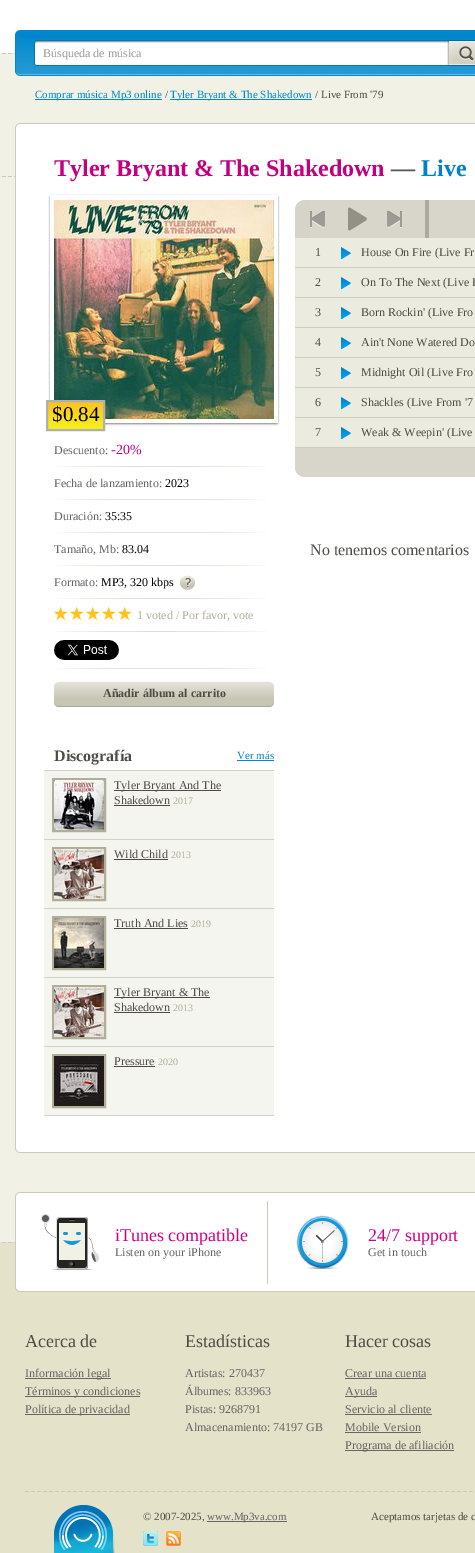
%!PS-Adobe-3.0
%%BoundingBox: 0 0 475 1553
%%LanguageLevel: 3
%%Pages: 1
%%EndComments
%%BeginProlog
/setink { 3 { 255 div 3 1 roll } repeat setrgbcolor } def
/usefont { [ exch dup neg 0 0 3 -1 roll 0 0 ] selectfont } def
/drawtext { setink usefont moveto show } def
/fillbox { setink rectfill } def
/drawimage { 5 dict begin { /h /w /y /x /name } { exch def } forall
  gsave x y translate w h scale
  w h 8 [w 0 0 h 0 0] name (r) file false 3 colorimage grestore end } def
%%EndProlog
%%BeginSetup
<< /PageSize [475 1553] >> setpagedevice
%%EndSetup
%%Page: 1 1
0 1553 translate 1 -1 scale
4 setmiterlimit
0 0 475 1553 228 226 201 fillbox
0 0 475 53 255 255 255 fillbox
0 53 475 1189 242 241 230 fillbox
(assets/img1.rgb) 2 53 13 1 drawimage
21 30 454 46 0 136 204 fillbox
(assets/img2.rgb) 21 38 454 37 drawimage
(assets/img3.rgb) 15 30 6 46 drawimage
(assets/img4.rgb) 34 40 413 26 drawimage
(Búsqueda de música) 43 57 /LiberationSerif-Regular 12 153 153 153 drawtext
(assets/img5.rgb) 447 40 28 26 drawimage
35 99 127 1 0 136 204 fillbox
(Comprar música Mp3 online) 35 98 /LiberationSerif-Regular 11 0 136 204 drawtext
(/) 165 98 /LiberationSerif-Regular 11 77 76 69 drawtext
170 99 142 1 0 136 204 fillbox
(Tyler Bryant & The Shakedown) 170 98 /LiberationSerif-Regular 11 0 136 204 drawtext
(/ Live From '79) 315 98 /LiberationSerif-Regular 11 77 76 69 drawtext
(assets/img1.rgb) 2 176 13 1 drawimage
20 124 455 4 255 255 255 fillbox
20 123 455 1 204 202 184 fillbox
(assets/img6.rgb) 15 123 5 5 drawimage
16 128 459 1020 255 255 255 fillbox
15 128 1 1020 204 202 184 fillbox
(Tyler Bryant & The Shakedown) 54 176 /LiberationSerif-Bold 24 194 0 128 drawtext
(—) 391 176 /LiberationSerif-Bold 24 89 88 81 drawtext
(Live) 421 176 /LiberationSerif-Bold 24 0 130 198 drawtext
(assets/img8.rgb) 54 200 220 219 drawimage
(assets/img7.rgb) 48 194 232 232 drawimage
(assets/img9.rgb) 48 402 55 27 drawimage
176 176 175 setink
2 setlinewidth
47 401 57 29 rectstroke
($0.84) 52 421 /LiberationSerif-Regular 21 0 0 0 drawtext
(assets/img10.rgb) 55 466 213 1 drawimage
(Descuento:) 54 454 /LiberationSerif-Regular 12 100 100 100 drawtext
(-20%) 111 454 /LiberationSerif-Regular 14 194 0 128 drawtext
(assets/img10.rgb) 55 499 213 1 drawimage
(Fecha de lanzamiento:) 54 487 /LiberationSerif-Regular 12 100 100 100 drawtext
(2023) 165 487 /LiberationSerif-Regular 12 0 0 0 drawtext
(assets/img10.rgb) 55 532 213 1 drawimage
(Duración:) 54 520 /LiberationSerif-Regular 12 100 100 100 drawtext
(35:35) 105 520 /LiberationSerif-Regular 12 0 0 0 drawtext
(assets/img10.rgb) 55 565 213 1 drawimage
(Tamaño, Mb:) 54 553 /LiberationSerif-Regular 12 100 100 100 drawtext
(83.04) 122 553 /LiberationSerif-Regular 12 0 0 0 drawtext
(assets/img10.rgb) 55 598 213 1 drawimage
(Formato:) 54 586 /LiberationSerif-Regular 12 100 100 100 drawtext
(MP3, 320 kbps) 101 586 /LiberationSerif-Regular 12 0 0 0 drawtext
(assets/img11.rgb) 180 575 15 15 drawimage
(assets/img10.rgb) 55 631 213 1 drawimage
(assets/img12.rgb) 54 607 78 13 drawimage
(1 voted / Por favor, vote) 137 619 /LiberationSerif-Regular 12 177 174 151 drawtext
(assets/img10.rgb) 55 668 213 1 drawimage
(assets/img13.rgb) 54 640 65 20 drawimage
(assets/img14.rgb) 54 681 220 26 drawimage
(Añadir álbum al carrito) 103 697 /LiberationSerif-Bold 12 77 76 69 drawtext
(Discografía) 54 761 /LiberationSerif-Bold 16 77 76 69 drawtext
(Ver más) 237 759 /LiberationSerif-Regular 11 0 136 204 drawtext
237 760 37 1 0 136 204 fillbox
44 771 230 344 245 245 239 fillbox
44 770 230 1 211 209 195 fillbox
44 839 230 1 211 209 195 fillbox
177 174 151 setink
53 779 52 52 rectstroke
(assets/img15.rgb) 54 780 50 50 drawimage
114 790 107 1 77 76 69 fillbox
(Tyler Bryant And The) 114 789 /LiberationSerif-Regular 12 77 76 69 drawtext
(Shakedown) 114 804 /LiberationSerif-Regular 12 77 76 69 drawtext
114 805 56 1 77 76 69 fillbox
(2017) 173 804 /LiberationSerif-Regular 10 177 174 151 drawtext
44 908 230 1 211 209 195 fillbox
177 174 151 setink
53 848 52 52 rectstroke
(assets/img16.rgb) 54 849 50 50 drawimage
(Wild Child) 114 858 /LiberationSerif-Regular 12 77 76 69 drawtext
114 859 54 1 77 76 69 fillbox
(2013) 171 858 /LiberationSerif-Regular 10 177 174 151 drawtext
44 977 230 1 211 209 195 fillbox
177 174 151 setink
53 917 52 52 rectstroke
(assets/img17.rgb) 54 918 50 50 drawimage
(Truth And Lies) 114 927 /LiberationSerif-Regular 12 77 76 69 drawtext
114 928 74 1 77 76 69 fillbox
(2019) 191 927 /LiberationSerif-Regular 10 177 174 151 drawtext
44 1046 230 1 211 209 195 fillbox
177 174 151 setink
53 986 52 52 rectstroke
(assets/img18.rgb) 54 987 50 50 drawimage
114 997 96 1 77 76 69 fillbox
(Tyler Bryant & The) 114 996 /LiberationSerif-Regular 12 77 76 69 drawtext
(Shakedown) 114 1011 /LiberationSerif-Regular 12 77 76 69 drawtext
114 1012 56 1 77 76 69 fillbox
(2013) 173 1011 /LiberationSerif-Regular 10 177 174 151 drawtext
44 1115 230 1 211 209 195 fillbox
177 174 151 setink
53 1055 52 52 rectstroke
(assets/img19.rgb) 54 1056 50 50 drawimage
(Pressure) 114 1065 /LiberationSerif-Regular 12 77 76 69 drawtext
114 1066 41 1 77 76 69 fillbox
(2020) 158 1065 /LiberationSerif-Regular 10 177 174 151 drawtext
310 200 165 38 216 214 203 fillbox
295 200 15 38 214 212 201 fillbox
(assets/img20.rgb) 295 200 8 8 drawimage
(assets/img21.rgb) 310 211 15 17 drawimage
(assets/img22.rgb) 348 207 19 24 drawimage
(assets/img23.rgb) 387 211 15 17 drawimage
425 200 4 38 171 170 160 fillbox
295 238 180 29 236 235 224 fillbox
(1) 315 256 /LiberationSerif-Regular 12 77 76 69 drawtext
(assets/img24.rgb) 341 247 10 13 drawimage
295 267 180 1 206 204 187 fillbox
(House On Fire \(Live Fr) 361 256 /LiberationSerif-Regular 12 77 76 69 drawtext
295 268 180 29 236 235 224 fillbox
(2) 315 286 /LiberationSerif-Regular 12 77 76 69 drawtext
(assets/img24.rgb) 341 277 10 13 drawimage
295 297 180 1 206 204 187 fillbox
(On To The Next \(Live F) 361 286 /LiberationSerif-Regular 12 77 76 69 drawtext
295 298 180 29 236 235 224 fillbox
(3) 315 316 /LiberationSerif-Regular 12 77 76 69 drawtext
(assets/img24.rgb) 341 307 10 13 drawimage
295 327 180 1 206 204 187 fillbox
(Born Rockin' \(Live Fro) 361 316 /LiberationSerif-Regular 12 77 76 69 drawtext
295 328 180 29 236 235 224 fillbox
(4) 315 346 /LiberationSerif-Regular 12 77 76 69 drawtext
(assets/img24.rgb) 341 337 10 13 drawimage
295 357 180 1 206 204 187 fillbox
(Ain't None Watered Do) 361 346 /LiberationSerif-Regular 12 77 76 69 drawtext
295 358 180 29 236 235 224 fillbox
(5) 315 376 /LiberationSerif-Regular 12 77 76 69 drawtext
(assets/img24.rgb) 341 367 10 13 drawimage
295 387 180 1 206 204 187 fillbox
(Midnight Oil \(Live Fro) 361 376 /LiberationSerif-Regular 12 77 76 69 drawtext
295 388 180 29 236 235 224 fillbox
(6) 315 406 /LiberationSerif-Regular 12 77 76 69 drawtext
(assets/img24.rgb) 341 397 10 13 drawimage
295 417 180 1 206 204 187 fillbox
(Shackles \(Live From '7) 361 406 /LiberationSerif-Regular 12 77 76 69 drawtext
295 418 180 29 236 235 224 fillbox
(7) 315 436 /LiberationSerif-Regular 12 77 76 69 drawtext
(assets/img24.rgb) 341 427 10 13 drawimage
295 447 180 1 206 204 187 fillbox
(Weak & Weepin' \(Live) 361 436 /LiberationSerif-Regular 12 77 76 69 drawtext
295 448 180 29 216 214 203 fillbox
(assets/img25.rgb) 295 469 8 8 drawimage
(No tenemos comentarios) 310 555 /LiberationSerif-Regular 16 77 76 69 drawtext
20 1148 455 4 255 255 255 fillbox
20 1152 455 1 204 202 184 fillbox
(assets/img26.rgb) 15 1148 5 5 drawimage
(assets/img27.rgb) 2 1242 13 1 drawimage
20 1193 455 4 255 255 255 fillbox
20 1192 455 1 204 202 184 fillbox
(assets/img6.rgb) 15 1192 5 5 drawimage
16 1197 459 90 255 255 255 fillbox
15 1197 1 90 204 202 184 fillbox
(assets/img28.rgb) 41 1214 58 56 drawimage
(iTunes compatible) 115 1241 /LiberationSerif-Regular 18 204 0 136 drawtext
(Listen on your iPhone) 115 1256 /LiberationSerif-Regular 12 100 100 100 drawtext
267 1201 1 83 204 202 184 fillbox
(assets/img29.rgb) 296 1215 53 54 drawimage
(24/7 support) 368 1241 /LiberationSerif-Regular 18 204 0 136 drawtext
(Get in touch) 368 1256 /LiberationSerif-Regular 12 100 100 100 drawtext
20 1287 455 4 255 255 255 fillbox
20 1291 455 1 204 202 184 fillbox
(assets/img30.rgb) 15 1287 5 5 drawimage
(Acerca de) 25 1347 /LiberationSerif-Regular 18 77 76 69 drawtext
25 1378 86 1 102 102 102 fillbox
(Información legal) 25 1377 /LiberationSerif-Regular 12 100 100 100 drawtext
25 1396 115 1 102 102 102 fillbox
(Términos y condiciones) 25 1395 /LiberationSerif-Regular 12 100 100 100 drawtext
25 1414 105 1 102 102 102 fillbox
(Política de privacidad) 25 1413 /LiberationSerif-Regular 12 100 100 100 drawtext
(Estadísticas) 185 1347 /LiberationSerif-Regular 18 77 76 69 drawtext
(Artistas: 270437) 185 1377 /LiberationSerif-Regular 12 100 100 100 drawtext
(Álbumes: 833963) 185 1395 /LiberationSerif-Regular 12 100 100 100 drawtext
(Pistas: 9268791) 185 1413 /LiberationSerif-Regular 12 100 100 100 drawtext
(Almacenamiento: 74197 GB) 185 1431 /LiberationSerif-Regular 12 100 100 100 drawtext
(Hacer cosas) 345 1347 /LiberationSerif-Regular 18 77 76 69 drawtext
(Crear una cuenta) 345 1377 /LiberationSerif-Regular 12 100 100 100 drawtext
345 1378 81 1 102 102 102 fillbox
345 1396 32 1 102 102 102 fillbox
(Ayuda) 345 1395 /LiberationSerif-Regular 12 100 100 100 drawtext
(Servicio al cliente) 345 1413 /LiberationSerif-Regular 12 100 100 100 drawtext
345 1414 87 1 102 102 102 fillbox
(Mobile Version) 345 1431 /LiberationSerif-Regular 12 100 100 100 drawtext
345 1432 76 1 102 102 102 fillbox
345 1450 109 1 102 102 102 fillbox
(Programa de afiliación) 345 1449 /LiberationSerif-Regular 12 100 100 100 drawtext
(assets/img31.rgb) 25 1491 448 1 drawimage
(assets/img32.rgb) 54 1505 61 48 drawimage
(© 2007-2025,) 143 1520 /LiberationSerif-Regular 11 77 76 69 drawtext
207 1521 80 1 102 102 102 fillbox
(www.Mp3va.com) 207 1520 /LiberationSerif-Regular 11 100 100 100 drawtext
(assets/img33.rgb) 143 1531 15 15 drawimage
(assets/img34.rgb) 166 1531 15 15 drawimage
(Aceptamos tarjetas de c) 371 1520 /LiberationSerif-Regular 11 77 76 69 drawtext
showpage
%%EOF
